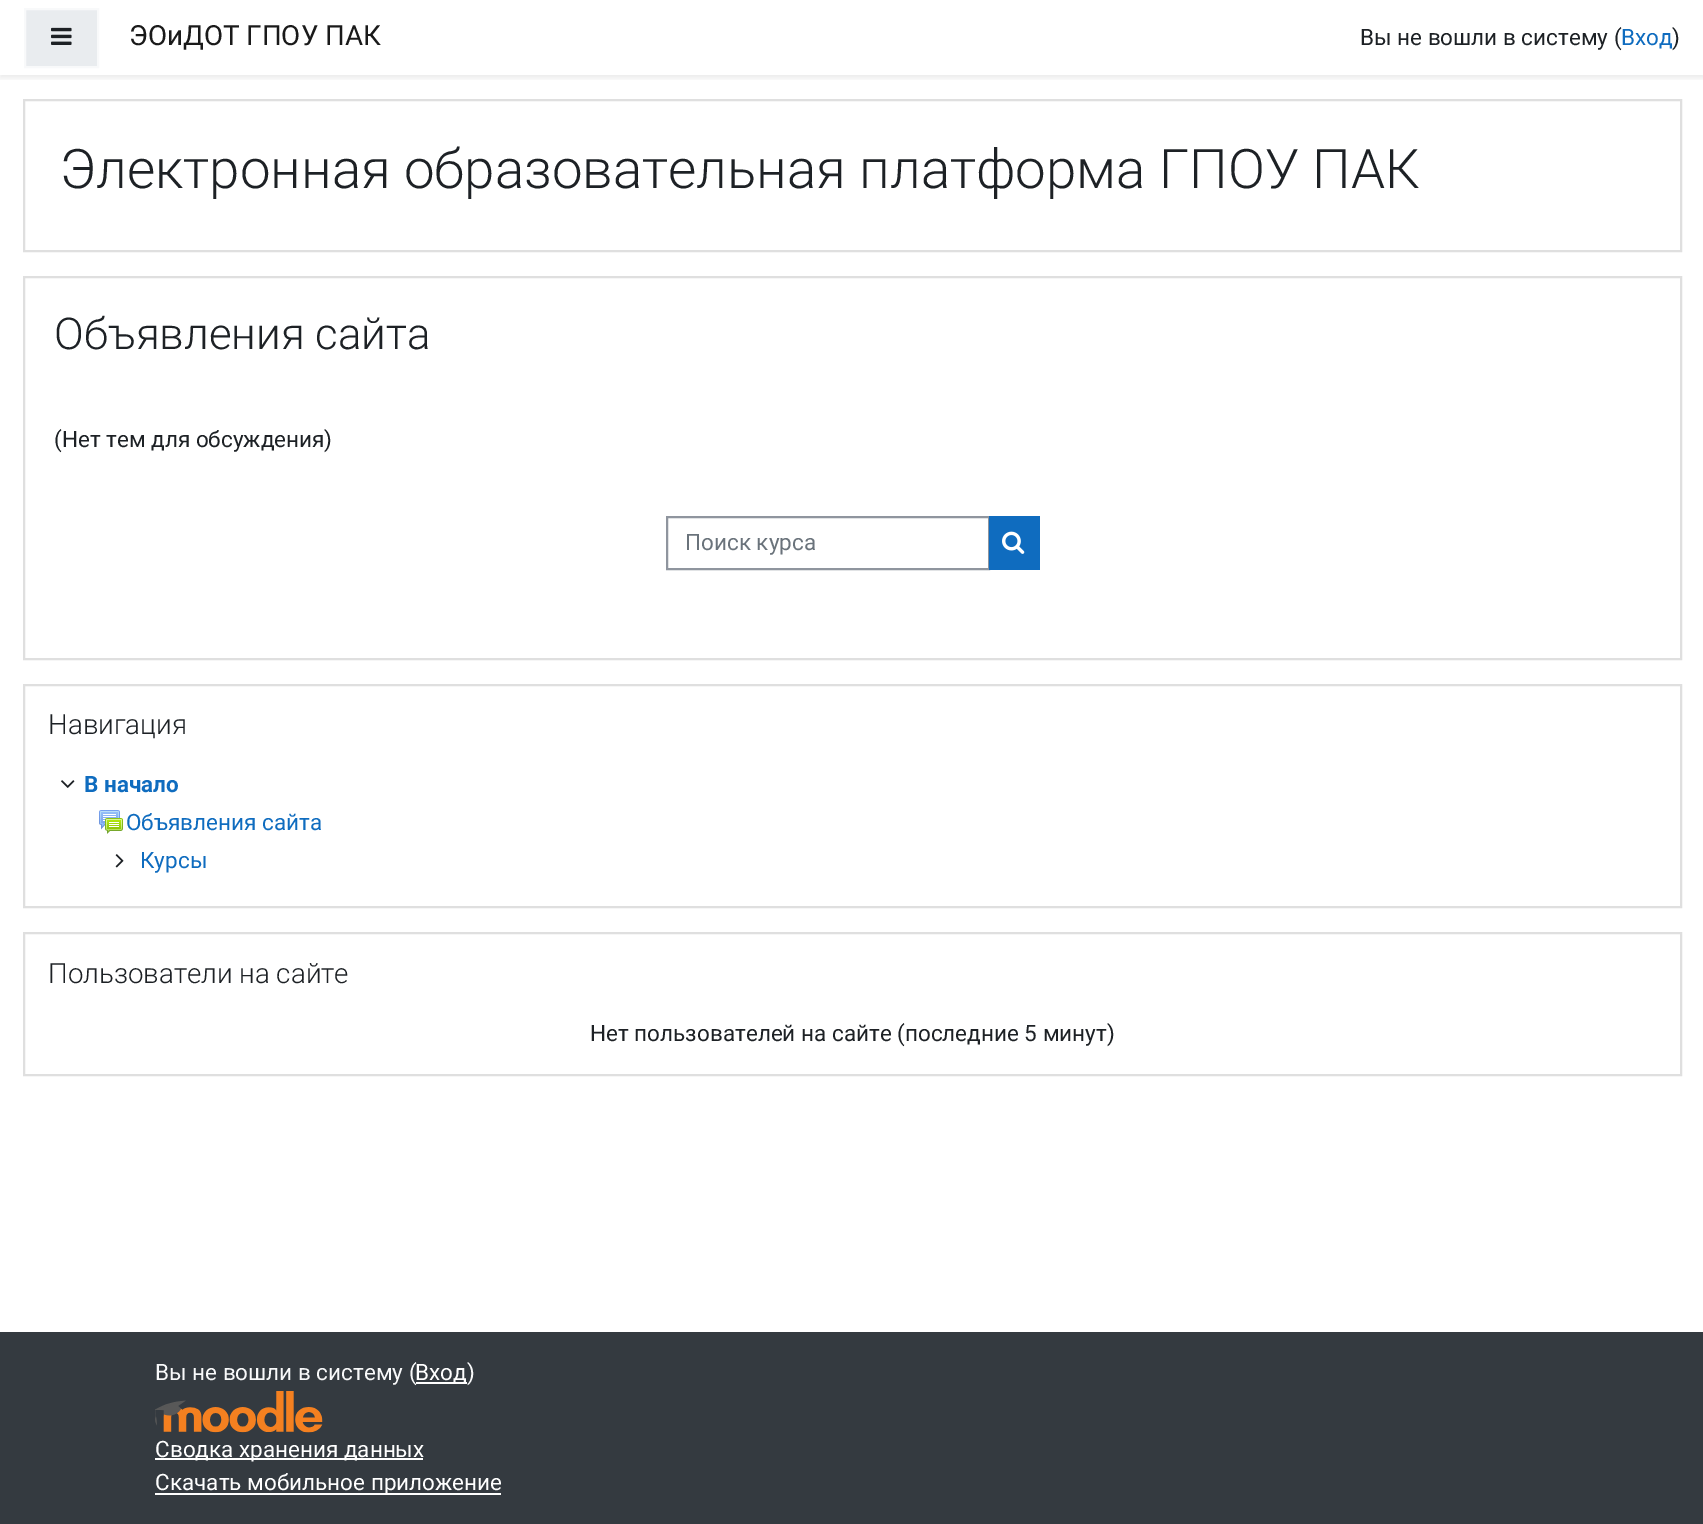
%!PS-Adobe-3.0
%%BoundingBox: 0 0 1703 1524
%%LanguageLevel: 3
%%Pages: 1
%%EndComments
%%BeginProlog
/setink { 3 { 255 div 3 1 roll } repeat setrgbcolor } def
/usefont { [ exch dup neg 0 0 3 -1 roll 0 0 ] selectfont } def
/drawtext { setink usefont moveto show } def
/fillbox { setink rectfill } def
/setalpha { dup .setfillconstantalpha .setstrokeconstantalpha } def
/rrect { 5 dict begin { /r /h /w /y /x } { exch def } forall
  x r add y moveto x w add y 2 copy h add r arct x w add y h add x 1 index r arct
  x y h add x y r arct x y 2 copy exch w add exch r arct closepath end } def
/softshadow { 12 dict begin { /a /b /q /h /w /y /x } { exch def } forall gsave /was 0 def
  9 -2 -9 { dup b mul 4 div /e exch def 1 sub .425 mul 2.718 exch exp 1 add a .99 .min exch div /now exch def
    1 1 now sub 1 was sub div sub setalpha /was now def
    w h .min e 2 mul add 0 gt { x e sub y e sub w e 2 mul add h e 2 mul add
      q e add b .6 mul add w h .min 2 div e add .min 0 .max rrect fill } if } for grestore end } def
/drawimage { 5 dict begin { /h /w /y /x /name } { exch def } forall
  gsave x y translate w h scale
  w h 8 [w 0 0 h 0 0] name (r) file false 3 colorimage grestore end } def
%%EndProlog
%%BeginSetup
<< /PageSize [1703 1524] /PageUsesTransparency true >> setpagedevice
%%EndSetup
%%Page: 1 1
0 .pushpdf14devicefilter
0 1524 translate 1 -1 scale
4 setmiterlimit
0 0 1703 1524 255 255 255 fillbox
gsave
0 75 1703 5 rectclip
0 0 0 setink
0 3 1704 75 0 3 0.08 softshadow
grestore
233 236 239 setink
25 9 moveto 98 9 lineto 98 67 lineto 25 67 lineto closepath gsave fill grestore
248 249 250 setink
2 setlinewidth
stroke
(assets/img1.rgb) 51 27 21 18 drawimage
(ЭОиДОТ ГПОУ ПАК) 129 45 /Roboto-Regular 27.75 26 26 26 drawtext
(Вы не вошли в систему \() 1360 45 /Roboto-Regular 22.5 29 33 37 drawtext
(Вход) 1621 45 /Roboto-Regular 22.5 15 108 191 drawtext
(\)) 1672 45 /Roboto-Regular 22.5 29 33 37 drawtext
223 223 223 setink
24 100 1657 151 rectstroke
(Электронная образовательная платформа ГПОУ ПАК) 60 188 /Roboto-Light 54.6 29 33 37 drawtext
223 223 223 setink
24 277 1657 382 rectstroke
(Объявления сайта) 54 349 /Roboto-Light 43.9 29 33 37 drawtext
(\(Нет тем для обсуждения\)) 54 447 /Roboto-Regular 22.5 29 33 37 drawtext
143 149 158 setink
667 517 322 52 rectstroke
(Поиск курса) 685 550 /Roboto-Regular 22.5 106 115 123 drawtext
989 516 51 54 15 108 191 fillbox
(assets/img2.rgb) 1002 531 23 23 drawimage
223 223 223 setink
24 685 1657 222 rectstroke
(Навигация) 48 734 /Roboto-Light 27.75 29 33 37 drawtext
(assets/img3.rgb) 61 780 14 8 drawimage
(В начало) 84 792 /Roboto-Bold 22.5 15 108 191 drawtext
(assets/img4.rgb) 99 810 24 24 drawimage
(Объявления сайта) 126 830 /Roboto-Regular 22.5 15 108 191 drawtext
(assets/img5.rgb) 115 854 9 14 drawimage
(Курсы) 140 868 /Roboto-Regular 22.5 15 108 191 drawtext
223 223 223 setink
24 933 1657 142 rectstroke
(Пользователи на сайте) 48 983 /Roboto-Light 27.75 29 33 37 drawtext
(Нет пользователей на сайте \(последние 5 минут\)) 590 1041 /Roboto-Regular 22.5 29 33 37 drawtext
0 1332 1703 192 52 58 64 fillbox
(Вы не вошли в систему \() 155 1380 /Roboto-Regular 22.5 248 249 250 drawtext
416 1382 51 2 255 255 255 fillbox
(Вход) 415 1380 /Roboto-Regular 22.5 255 255 255 drawtext
(\)) 467 1380 /Roboto-Regular 22.5 248 249 250 drawtext
(assets/img6.rgb) 155 1391 168 42 drawimage
155 1458 268 2 255 255 255 fillbox
(Сводка хранения данных) 155 1457 /Roboto-Regular 22.5 255 255 255 drawtext
155 1493 346 2 255 255 255 fillbox
(Скачать мобильное приложение) 155 1490 /Roboto-Regular 22.5 255 255 255 drawtext
.poppdf14devicefilter showpage
%%EOF
